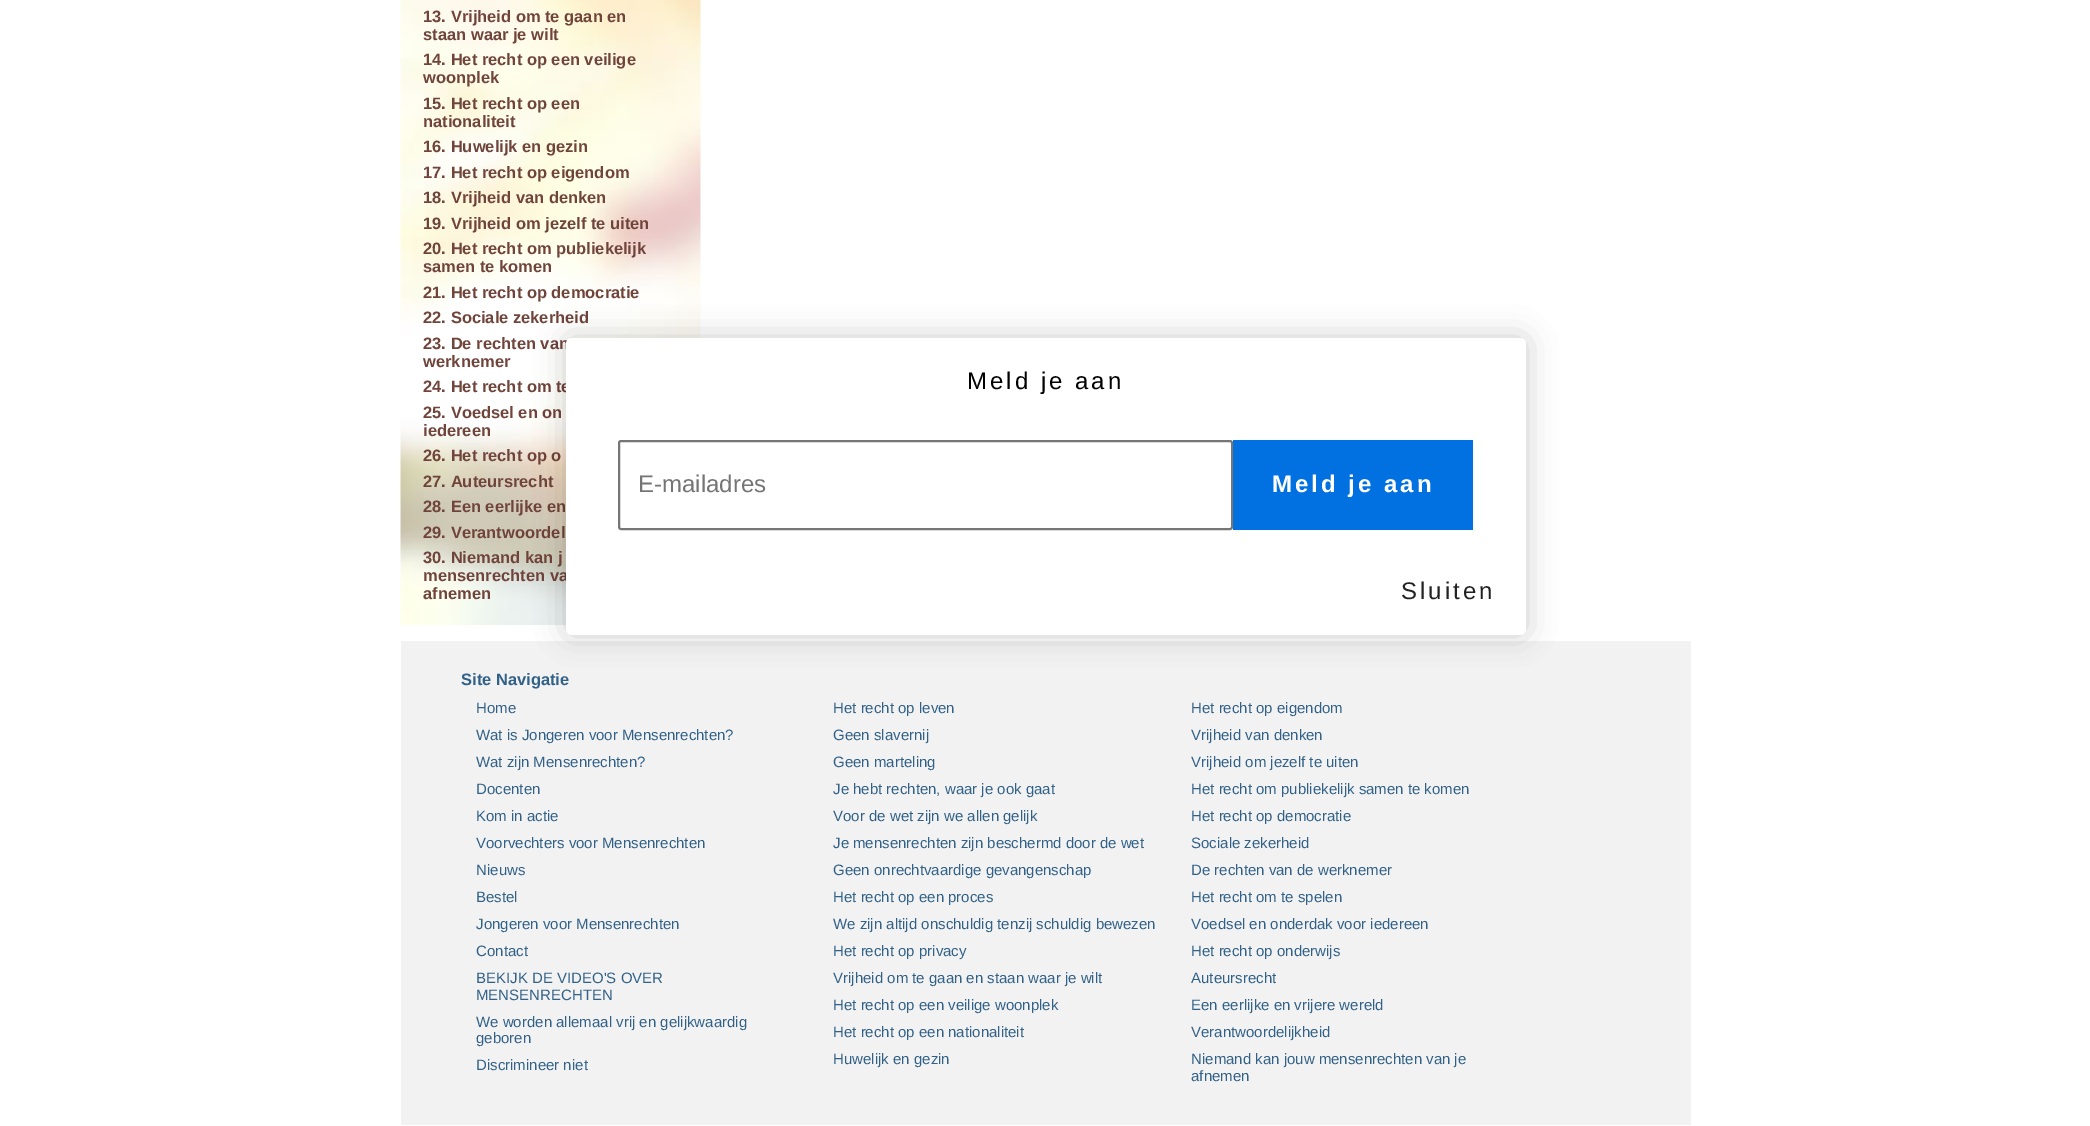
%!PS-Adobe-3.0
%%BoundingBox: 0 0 2090 1126
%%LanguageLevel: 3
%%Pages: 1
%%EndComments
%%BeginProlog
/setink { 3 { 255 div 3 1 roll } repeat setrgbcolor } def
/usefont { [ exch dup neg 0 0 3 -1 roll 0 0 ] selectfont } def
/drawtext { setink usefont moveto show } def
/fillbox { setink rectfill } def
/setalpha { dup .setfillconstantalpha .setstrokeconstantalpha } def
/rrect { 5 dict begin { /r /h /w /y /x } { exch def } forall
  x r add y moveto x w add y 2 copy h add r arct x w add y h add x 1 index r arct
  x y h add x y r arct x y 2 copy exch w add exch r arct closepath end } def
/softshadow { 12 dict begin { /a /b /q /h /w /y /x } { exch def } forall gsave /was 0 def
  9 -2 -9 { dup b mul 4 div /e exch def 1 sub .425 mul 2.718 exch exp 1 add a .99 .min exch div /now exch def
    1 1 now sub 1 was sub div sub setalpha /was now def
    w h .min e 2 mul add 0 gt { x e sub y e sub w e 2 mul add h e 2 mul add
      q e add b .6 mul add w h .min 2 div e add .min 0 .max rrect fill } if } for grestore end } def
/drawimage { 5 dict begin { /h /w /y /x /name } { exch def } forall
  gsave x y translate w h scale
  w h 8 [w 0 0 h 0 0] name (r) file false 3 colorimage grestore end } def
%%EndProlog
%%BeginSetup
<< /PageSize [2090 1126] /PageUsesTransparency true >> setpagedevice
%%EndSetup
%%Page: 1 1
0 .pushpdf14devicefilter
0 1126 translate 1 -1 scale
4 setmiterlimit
0 0 2090 1126 255 255 255 fillbox
(assets/img1.rgb) 400 0 301 625 drawimage
(13. Vrijheid om te gaan en) 423 22 /LiberationSans-Bold 16.5 112 68 58 drawtext
(staan waar je wilt) 423 40 /LiberationSans-Bold 16.5 112 68 58 drawtext
(14. Het recht op een veilige) 423 65 /LiberationSans-Bold 16.5 112 68 58 drawtext
(woonplek) 423 83 /LiberationSans-Bold 16.5 112 68 58 drawtext
(15. Het recht op een) 423 109 /LiberationSans-Bold 16.5 112 68 58 drawtext
(nationaliteit) 423 127 /LiberationSans-Bold 16.5 112 68 58 drawtext
(16. Huwelijk en gezin) 423 152 /LiberationSans-Bold 16.5 112 68 58 drawtext
(17. Het recht op eigendom) 423 178 /LiberationSans-Bold 16.5 112 68 58 drawtext
(18. Vrijheid van denken) 423 203 /LiberationSans-Bold 16.5 112 68 58 drawtext
(19. Vrijheid om jezelf te uiten) 423 229 /LiberationSans-Bold 16.5 112 68 58 drawtext
(20. Het recht om publiekelijk) 423 254 /LiberationSans-Bold 16.5 112 68 58 drawtext
(samen te komen) 423 272 /LiberationSans-Bold 16.5 112 68 58 drawtext
(21. Het recht op democratie) 423 298 /LiberationSans-Bold 16.5 112 68 58 drawtext
(22. Sociale zekerheid) 423 323 /LiberationSans-Bold 16.5 112 68 58 drawtext
(23. De rechten van) 423 349 /LiberationSans-Bold 16.5 112 68 58 drawtext
(werknemer) 423 367 /LiberationSans-Bold 16.5 112 68 58 drawtext
(24. Het recht om te) 423 392 /LiberationSans-Bold 16.5 112 68 58 drawtext
(25. Voedsel en on) 423 418 /LiberationSans-Bold 16.5 112 68 58 drawtext
(iedereen) 423 436 /LiberationSans-Bold 16.5 112 68 58 drawtext
(26. Het recht op o) 423 461 /LiberationSans-Bold 16.5 112 68 58 drawtext
(27. Auteursrecht) 423 487 /LiberationSans-Bold 16.5 112 68 58 drawtext
(28. Een eerlijke en) 423 512 /LiberationSans-Bold 16.5 112 68 58 drawtext
(29. Verantwoordel) 423 538 /LiberationSans-Bold 16.5 112 68 58 drawtext
(30. Niemand kan j) 423 563 /LiberationSans-Bold 16.5 112 68 58 drawtext
(mensenrechten va) 423 581 /LiberationSans-Bold 16.5 112 68 58 drawtext
(afnemen) 423 599 /LiberationSans-Bold 16.5 112 68 58 drawtext
401 641 1290 484 242 242 242 fillbox
(Site Navigatie) 461 685 /LiberationSans-Bold 16.5 50 97 136 drawtext
(Home) 476 713 /LiberationSans-Regular 15 50 97 136 drawtext
(Wat is Jongeren voor Mensenrechten?) 476 740 /LiberationSans-Regular 15 50 97 136 drawtext
(Wat zijn Mensenrechten?) 476 767 /LiberationSans-Regular 15 50 97 136 drawtext
(Docenten) 476 794 /LiberationSans-Regular 15 50 97 136 drawtext
(Kom in actie) 476 821 /LiberationSans-Regular 15 50 97 136 drawtext
(Voorvechters voor Mensenrechten) 476 848 /LiberationSans-Regular 15 50 97 136 drawtext
(Nieuws) 476 875 /LiberationSans-Regular 15 50 97 136 drawtext
(Bestel) 476 902 /LiberationSans-Regular 15 50 97 136 drawtext
(Jongeren voor Mensenrechten) 476 929 /LiberationSans-Regular 15 50 97 136 drawtext
(Contact) 476 956 /LiberationSans-Regular 15 50 97 136 drawtext
(BEKIJK DE VIDEO'S OVER) 476 983 /LiberationSans-Regular 15 50 97 136 drawtext
(MENSENRECHTEN) 476 1000 /LiberationSans-Regular 15 50 97 136 drawtext
(We worden allemaal vrij en gelijkwaardig) 476 1027 /LiberationSans-Regular 15 50 97 136 drawtext
(geboren) 476 1043 /LiberationSans-Regular 15 50 97 136 drawtext
(Discrimineer niet) 476 1070 /LiberationSans-Regular 15 50 97 136 drawtext
(Het recht op leven) 833 713 /LiberationSans-Regular 15 50 97 136 drawtext
(Geen slavernij) 833 740 /LiberationSans-Regular 15 50 97 136 drawtext
(Geen marteling) 833 767 /LiberationSans-Regular 15 50 97 136 drawtext
(Je hebt rechten, waar je ook gaat) 833 794 /LiberationSans-Regular 15 50 97 136 drawtext
(Voor de wet zijn we allen gelijk) 833 821 /LiberationSans-Regular 15 50 97 136 drawtext
(Je mensenrechten zijn beschermd door de wet) 833 848 /LiberationSans-Regular 15 50 97 136 drawtext
(Geen onrechtvaardige gevangenschap) 833 875 /LiberationSans-Regular 15 50 97 136 drawtext
(Het recht op een proces) 833 902 /LiberationSans-Regular 15 50 97 136 drawtext
(We zijn altijd onschuldig tenzij schuldig bewezen) 833 929 /LiberationSans-Regular 15 50 97 136 drawtext
(Het recht op privacy) 833 956 /LiberationSans-Regular 15 50 97 136 drawtext
(Vrijheid om te gaan en staan waar je wilt) 833 983 /LiberationSans-Regular 15 50 97 136 drawtext
(Het recht op een veilige woonplek) 833 1010 /LiberationSans-Regular 15 50 97 136 drawtext
(Het recht op een nationaliteit) 833 1037 /LiberationSans-Regular 15 50 97 136 drawtext
(Huwelijk en gezin) 833 1064 /LiberationSans-Regular 15 50 97 136 drawtext
(Het recht op eigendom) 1191 713 /LiberationSans-Regular 15 50 97 136 drawtext
(Vrijheid van denken) 1191 740 /LiberationSans-Regular 15 50 97 136 drawtext
(Vrijheid om jezelf te uiten) 1191 767 /LiberationSans-Regular 15 50 97 136 drawtext
(Het recht om publiekelijk samen te komen) 1191 794 /LiberationSans-Regular 15 50 97 136 drawtext
(Het recht op democratie) 1191 821 /LiberationSans-Regular 15 50 97 136 drawtext
(Sociale zekerheid) 1191 848 /LiberationSans-Regular 15 50 97 136 drawtext
(De rechten van de werknemer) 1191 875 /LiberationSans-Regular 15 50 97 136 drawtext
(Het recht om te spelen) 1191 902 /LiberationSans-Regular 15 50 97 136 drawtext
(Voedsel en onderdak voor iedereen) 1191 929 /LiberationSans-Regular 15 50 97 136 drawtext
(Het recht op onderwijs) 1191 956 /LiberationSans-Regular 15 50 97 136 drawtext
(Auteursrecht) 1191 983 /LiberationSans-Regular 15 50 97 136 drawtext
(Een eerlijke en vrijere wereld) 1191 1010 /LiberationSans-Regular 15 50 97 136 drawtext
(Verantwoordelijkheid) 1191 1037 /LiberationSans-Regular 15 50 97 136 drawtext
(Niemand kan jouw mensenrechten van je) 1191 1064 /LiberationSans-Regular 15 50 97 136 drawtext
(afnemen) 1191 1081 /LiberationSans-Regular 15 50 97 136 drawtext
0 0 0 setink
566 338 960 297 6 15 0.2 softshadow
255 255 255 setink
566 338 960 297 6 rrect fill
/LiberationSans-Regular 24 usefont
0 0 0 setink
967 389 moveto 3 0 (Meld je aan) ashow
118 118 118 setink
2 setlinewidth
619 441 613 88 2 rrect stroke
(E-mailadres) 638 492 /LiberationSans-Regular 24 117 117 117 drawtext
1233 440 240 90 1 113 225 fillbox
/LiberationSans-Bold 24 usefont
255 255 255 setink
1272 492 moveto 3 0 (Meld je aan) ashow
/LiberationSans-Regular 24 usefont
34 34 34 setink
1401 599 moveto 3 0 (Sluiten) ashow
.poppdf14devicefilter showpage
%%EOF
